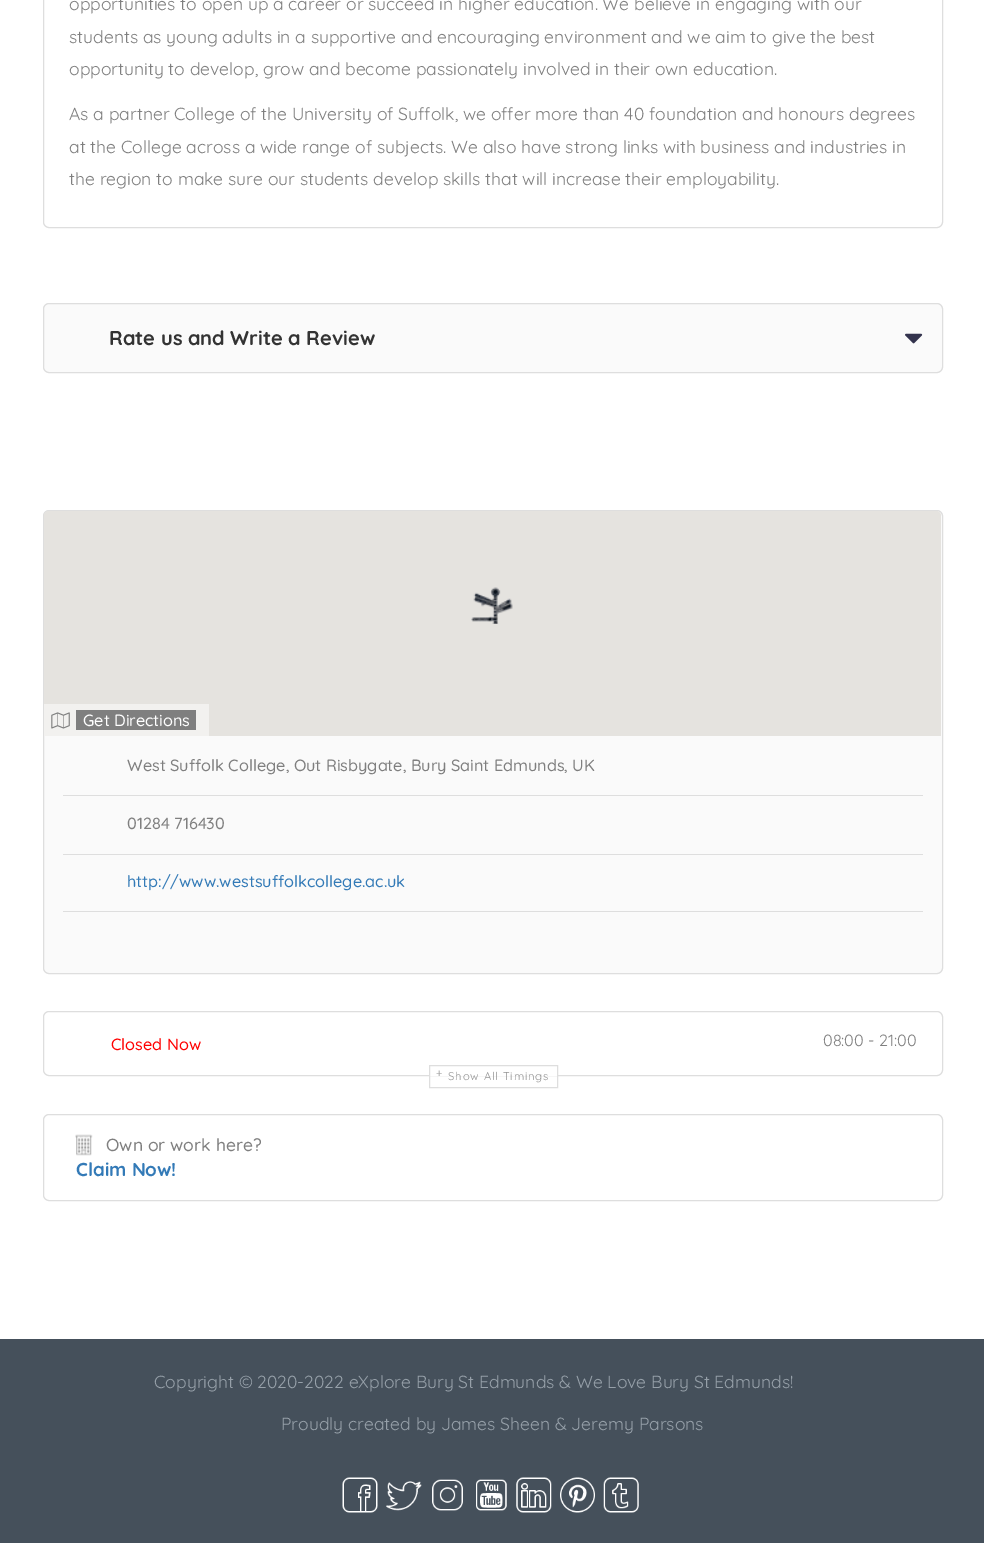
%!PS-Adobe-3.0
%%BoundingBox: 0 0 984 1543
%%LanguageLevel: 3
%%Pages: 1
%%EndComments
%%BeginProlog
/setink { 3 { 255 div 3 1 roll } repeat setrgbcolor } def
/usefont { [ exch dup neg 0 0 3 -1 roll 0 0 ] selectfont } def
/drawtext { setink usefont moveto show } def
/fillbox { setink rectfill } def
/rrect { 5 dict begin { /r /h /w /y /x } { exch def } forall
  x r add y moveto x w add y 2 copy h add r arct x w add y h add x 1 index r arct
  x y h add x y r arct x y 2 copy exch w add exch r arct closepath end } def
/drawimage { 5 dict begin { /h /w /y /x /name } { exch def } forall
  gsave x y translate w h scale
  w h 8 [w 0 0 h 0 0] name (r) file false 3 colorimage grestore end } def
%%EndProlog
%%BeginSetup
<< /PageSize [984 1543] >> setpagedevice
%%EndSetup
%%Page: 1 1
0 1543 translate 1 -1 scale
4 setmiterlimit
0 0 984 1543 69 80 91 fillbox
0 0 984 1339 255 255 255 fillbox
222 222 222 setink
43.5 -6.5 899 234 5.5 rrect stroke
(opportunities to open up a career or succeed in higher education. We believe in engaging with our) 69 10 /Quicksand-Regular 17.5 127 127 127 drawtext
(students as young adults in a supportive and encouraging environment and we aim to give the best) 69 43 /Quicksand-Regular 17.5 127 127 127 drawtext
(opportunity to develop, grow and become passionately involved in their own education.) 69 75 /Quicksand-Regular 17.5 127 127 127 drawtext
(As a partner College of the University of Suffolk, we offer more than 40 foundation and honours degrees) 69 120 /Quicksand-Regular 17.5 127 127 127 drawtext
(at the College across a wide range of subjects. We also have strong links with business and industries in) 69 153 /Quicksand-Regular 17.5 127 127 127 drawtext
(the region to make sure our students develop skills that will increase their employability.) 69 185 /Quicksand-Regular 17.5 127 127 127 drawtext
250 250 250 setink
43.5 303.5 899 69 5.5 rrect gsave fill grestore
222 222 222 setink
stroke
(Rate us and Write a Review) 109 345 /Quicksand-Bold 20 51 51 51 drawtext
(assets/img1.rgb) 905 333 18 11 drawimage
250 250 250 setink
43.5 510.5 899 463 5.5 rrect gsave fill grestore
222 222 222 setink
stroke
229 227 223 setink
49 511 moveto 936 511 lineto 939 511 941 513 941 516 curveto 941 736 lineto 44 736 lineto 44 516 lineto 44 513 46 511 49 511 curveto closepath fill
(assets/img2.rgb) 471 587 42 37 drawimage
44 704 165 32 242 241 239 fillbox
(assets/img3.rgb) 51 712 19 17 drawimage
76 710 120 20 127 127 127 fillbox
(Get Directions) 83 726 /Quicksand-Medium 16.25 255 255 255 drawtext
63 795 860 1 222 222 222 fillbox
(West Suffolk College, Out Risbygate, Bury Saint Edmunds, UK) 127 771 /Quicksand-Medium 16.25 127 127 127 drawtext
63 854 860 1 222 222 222 fillbox
(01284 716430) 127 829 /Quicksand-Medium 16.25 127 127 127 drawtext
(http://www.westsuffolkcollege.ac.uk) 127 887 /Quicksand-Medium 16.25 51 122 183 drawtext
63 911 860 1 222 222 222 fillbox
43.5 1011.5 899 64 5.5 rrect stroke
(Closed Now) 111 1050 /Quicksand-Medium 16.25 255 0 0 drawtext
(08:00 - 21:00) 823 1046 /Quicksand-Regular 16.25 127 127 127 drawtext
430 1075 127 1 255 255 255 fillbox
222 222 222 setink
429.5 1065.5 128 22 rectstroke
/Quicksand-Regular 11.25 usefont
147 147 147 setink
436 1077 moveto 0.9 0 (+) ashow
448 1080 moveto 0.9 0 (Show All Timings) ashow
222 222 222 setink
43.5 1114.5 899 86 5.5 rrect stroke
(assets/img4.rgb) 75 1134 18 22 drawimage
(Own or work here?) 106 1151 /Quicksand-Medium 17.5 127 127 127 drawtext
(Claim Now!) 76 1176 /Quicksand-Bold 18.75 51 122 183 drawtext
(Copyright © 2020-2022 eXplore Bury St Edmunds & We Love Bury St Edmunds!) 154 1388 /Quicksand-Regular 17.5 150 160 169 drawtext
(Proudly created by James Sheen & Jeremy Parsons) 281 1430 /Quicksand-Regular 17.5 150 160 169 drawtext
(assets/img5.rgb) 342 1477 36 36 drawimage
(assets/img6.rgb) 386 1481 36 30 drawimage
(assets/img7.rgb) 432 1479 31 32 drawimage
(assets/img8.rgb) 476 1479 31 32 drawimage
(assets/img9.rgb) 516 1477 36 36 drawimage
(assets/img10.rgb) 560 1477 35 36 drawimage
(assets/img11.rgb) 603 1477 36 36 drawimage
showpage
%%EOF
